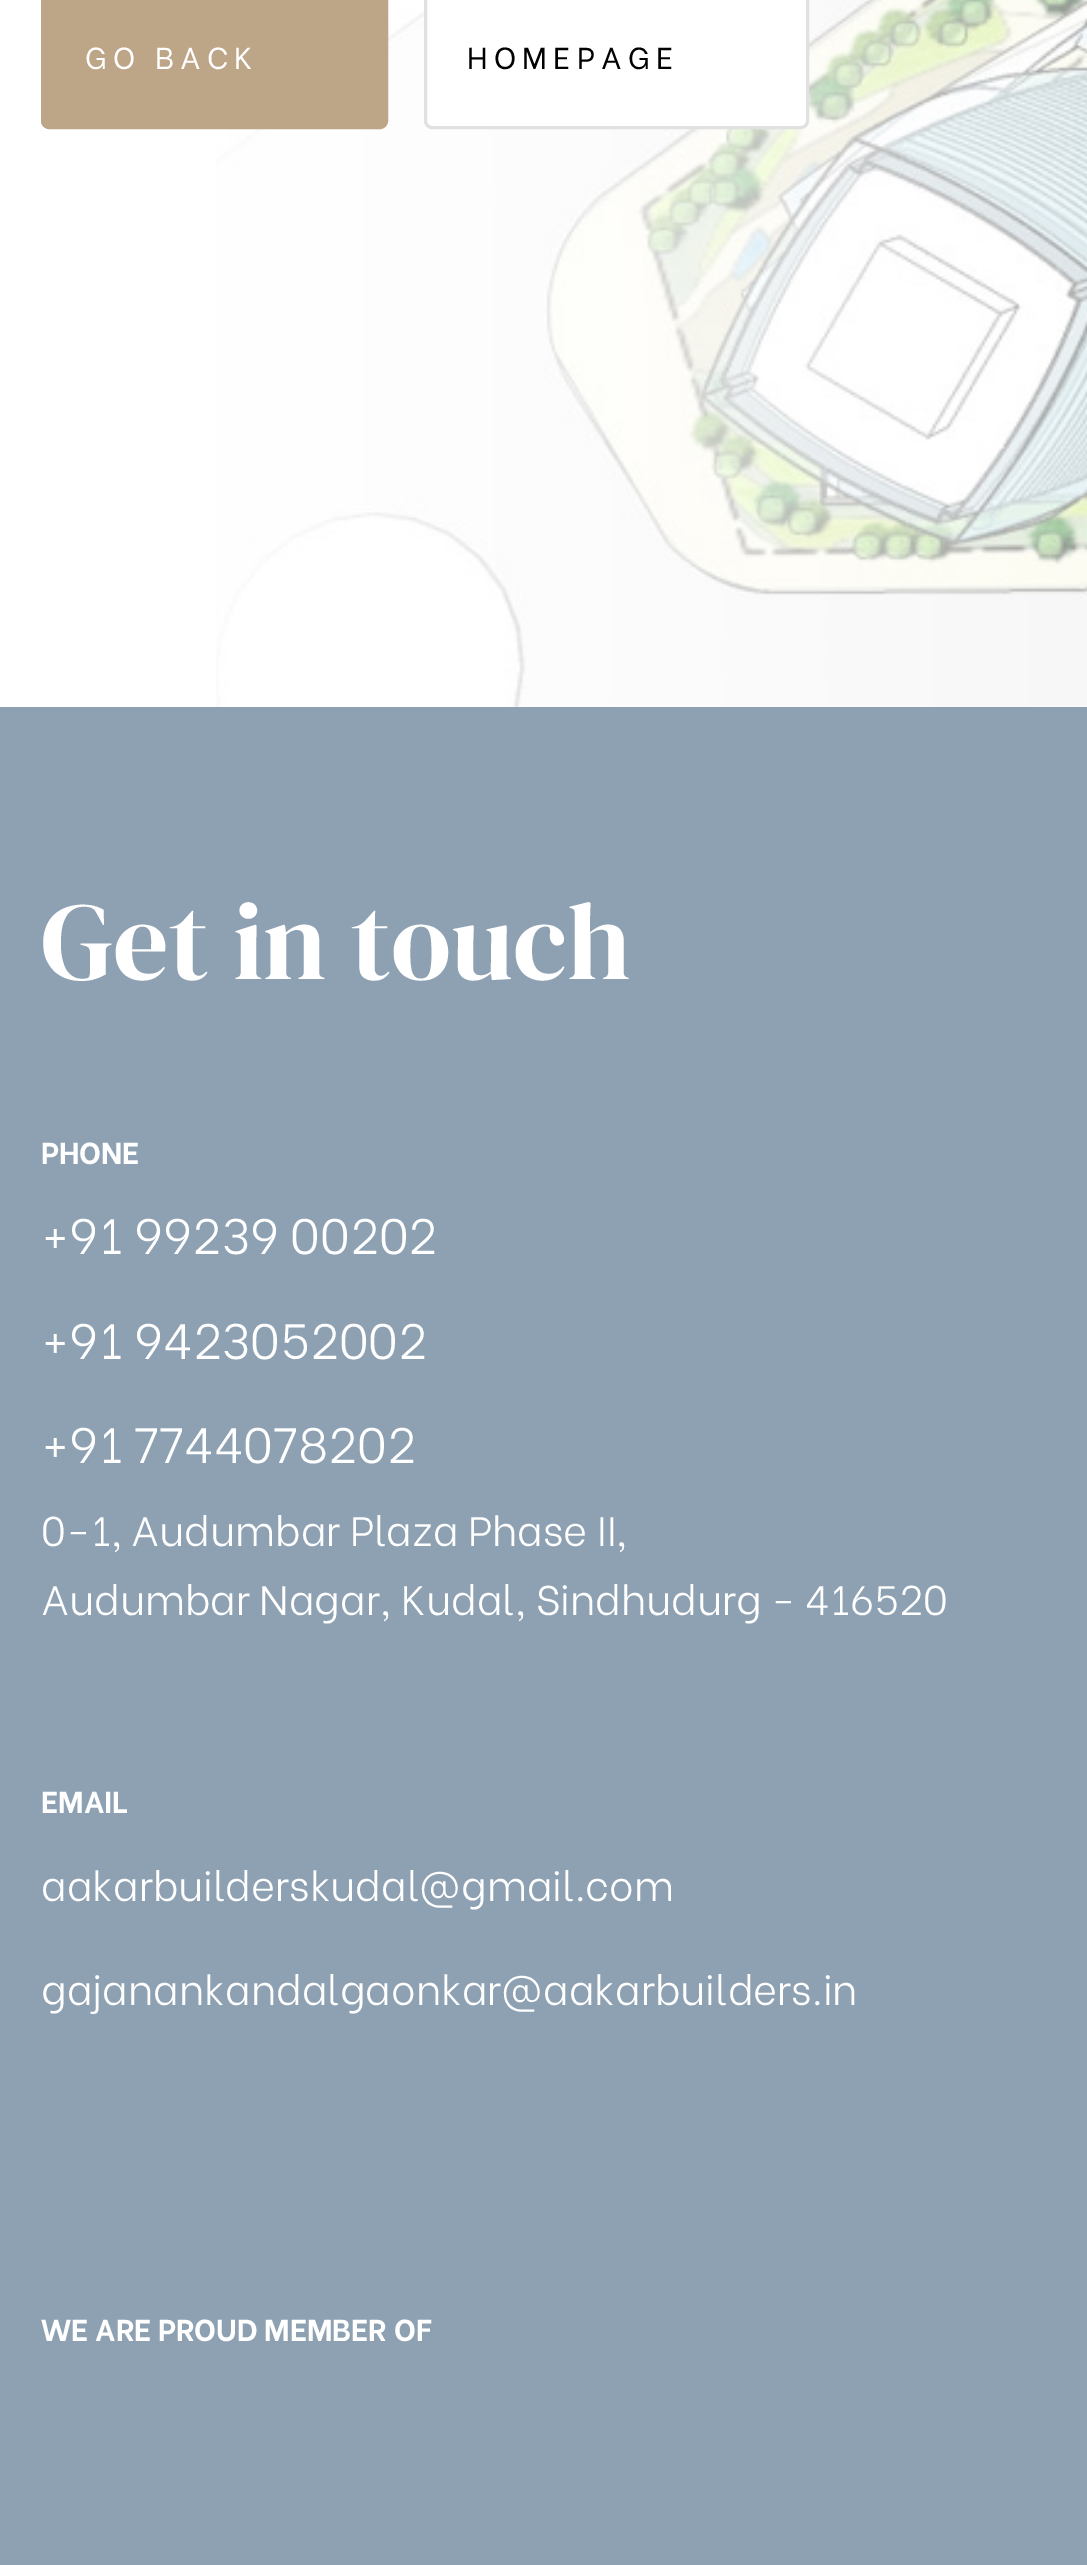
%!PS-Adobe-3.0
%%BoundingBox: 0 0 1087 2565
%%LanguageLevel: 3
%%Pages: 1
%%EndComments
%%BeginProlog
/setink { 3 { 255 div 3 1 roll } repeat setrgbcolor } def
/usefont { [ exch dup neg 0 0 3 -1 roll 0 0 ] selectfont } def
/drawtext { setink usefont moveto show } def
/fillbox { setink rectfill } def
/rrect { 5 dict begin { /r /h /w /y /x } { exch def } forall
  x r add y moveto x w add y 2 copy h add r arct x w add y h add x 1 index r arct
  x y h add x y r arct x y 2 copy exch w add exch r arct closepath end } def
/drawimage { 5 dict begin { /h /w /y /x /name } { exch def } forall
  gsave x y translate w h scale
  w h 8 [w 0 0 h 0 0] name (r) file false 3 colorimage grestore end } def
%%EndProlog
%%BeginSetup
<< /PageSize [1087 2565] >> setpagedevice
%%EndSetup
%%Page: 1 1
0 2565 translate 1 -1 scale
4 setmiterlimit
0 0 1087 2565 255 255 255 fillbox
(assets/img1.rgb) 216 0 871 707 drawimage
189 165 136 setink
42.5 -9.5 344 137 6.5 rrect gsave fill grestore
3 setlinewidth
stroke
/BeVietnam-Regular 30.25 usefont
255 255 255 setink
85 69 moveto 6.25 0 (GO BACK) ashow
425.5 -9.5 382 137 6.5 rrect gsave fill grestore
225 225 225 setink
stroke
0 0 0 setink
467 69 moveto 6.25 0 (HOMEPAGE) ashow
0 707 1087 1858 142 161 179 fillbox
(Get in touch) 41 979 /DMSerifDisplay-Regular 110 255 255 255 drawtext
(PHONE) 41 1164 /BeVietnam-Bold 30.25 255 255 255 drawtext
(+91 99239 00202) 41 1254 /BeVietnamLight-Light 49.5 255 255 255 drawtext
(+91 9423052002) 41 1359 /BeVietnamLight-Light 49.5 255 255 255 drawtext
(+91 7744078202) 41 1463 /BeVietnamLight-Light 49.5 255 255 255 drawtext
(0-1, Audumbar Plaza Phase II,) 41 1546 /BeVietnamLight-Light 41.25 255 255 255 drawtext
(Audumbar Nagar, Kudal, Sindhudurg - 416520) 41 1615 /BeVietnamLight-Light 41.25 255 255 255 drawtext
(EMAIL) 41 1813 /BeVietnam-Bold 30.25 255 255 255 drawtext
(aakarbuilderskudal@gmail.com) 41 1901 /BeVietnamLight-Light 41.25 255 255 255 drawtext
(gajanankandalgaonkar@aakarbuilders.in) 41 2005 /BeVietnamLight-Light 41.25 255 255 255 drawtext
(WE ARE PROUD MEMBER OF) 41 2341 /BeVietnam-Bold 30.25 255 255 255 drawtext
showpage
%%EOF
